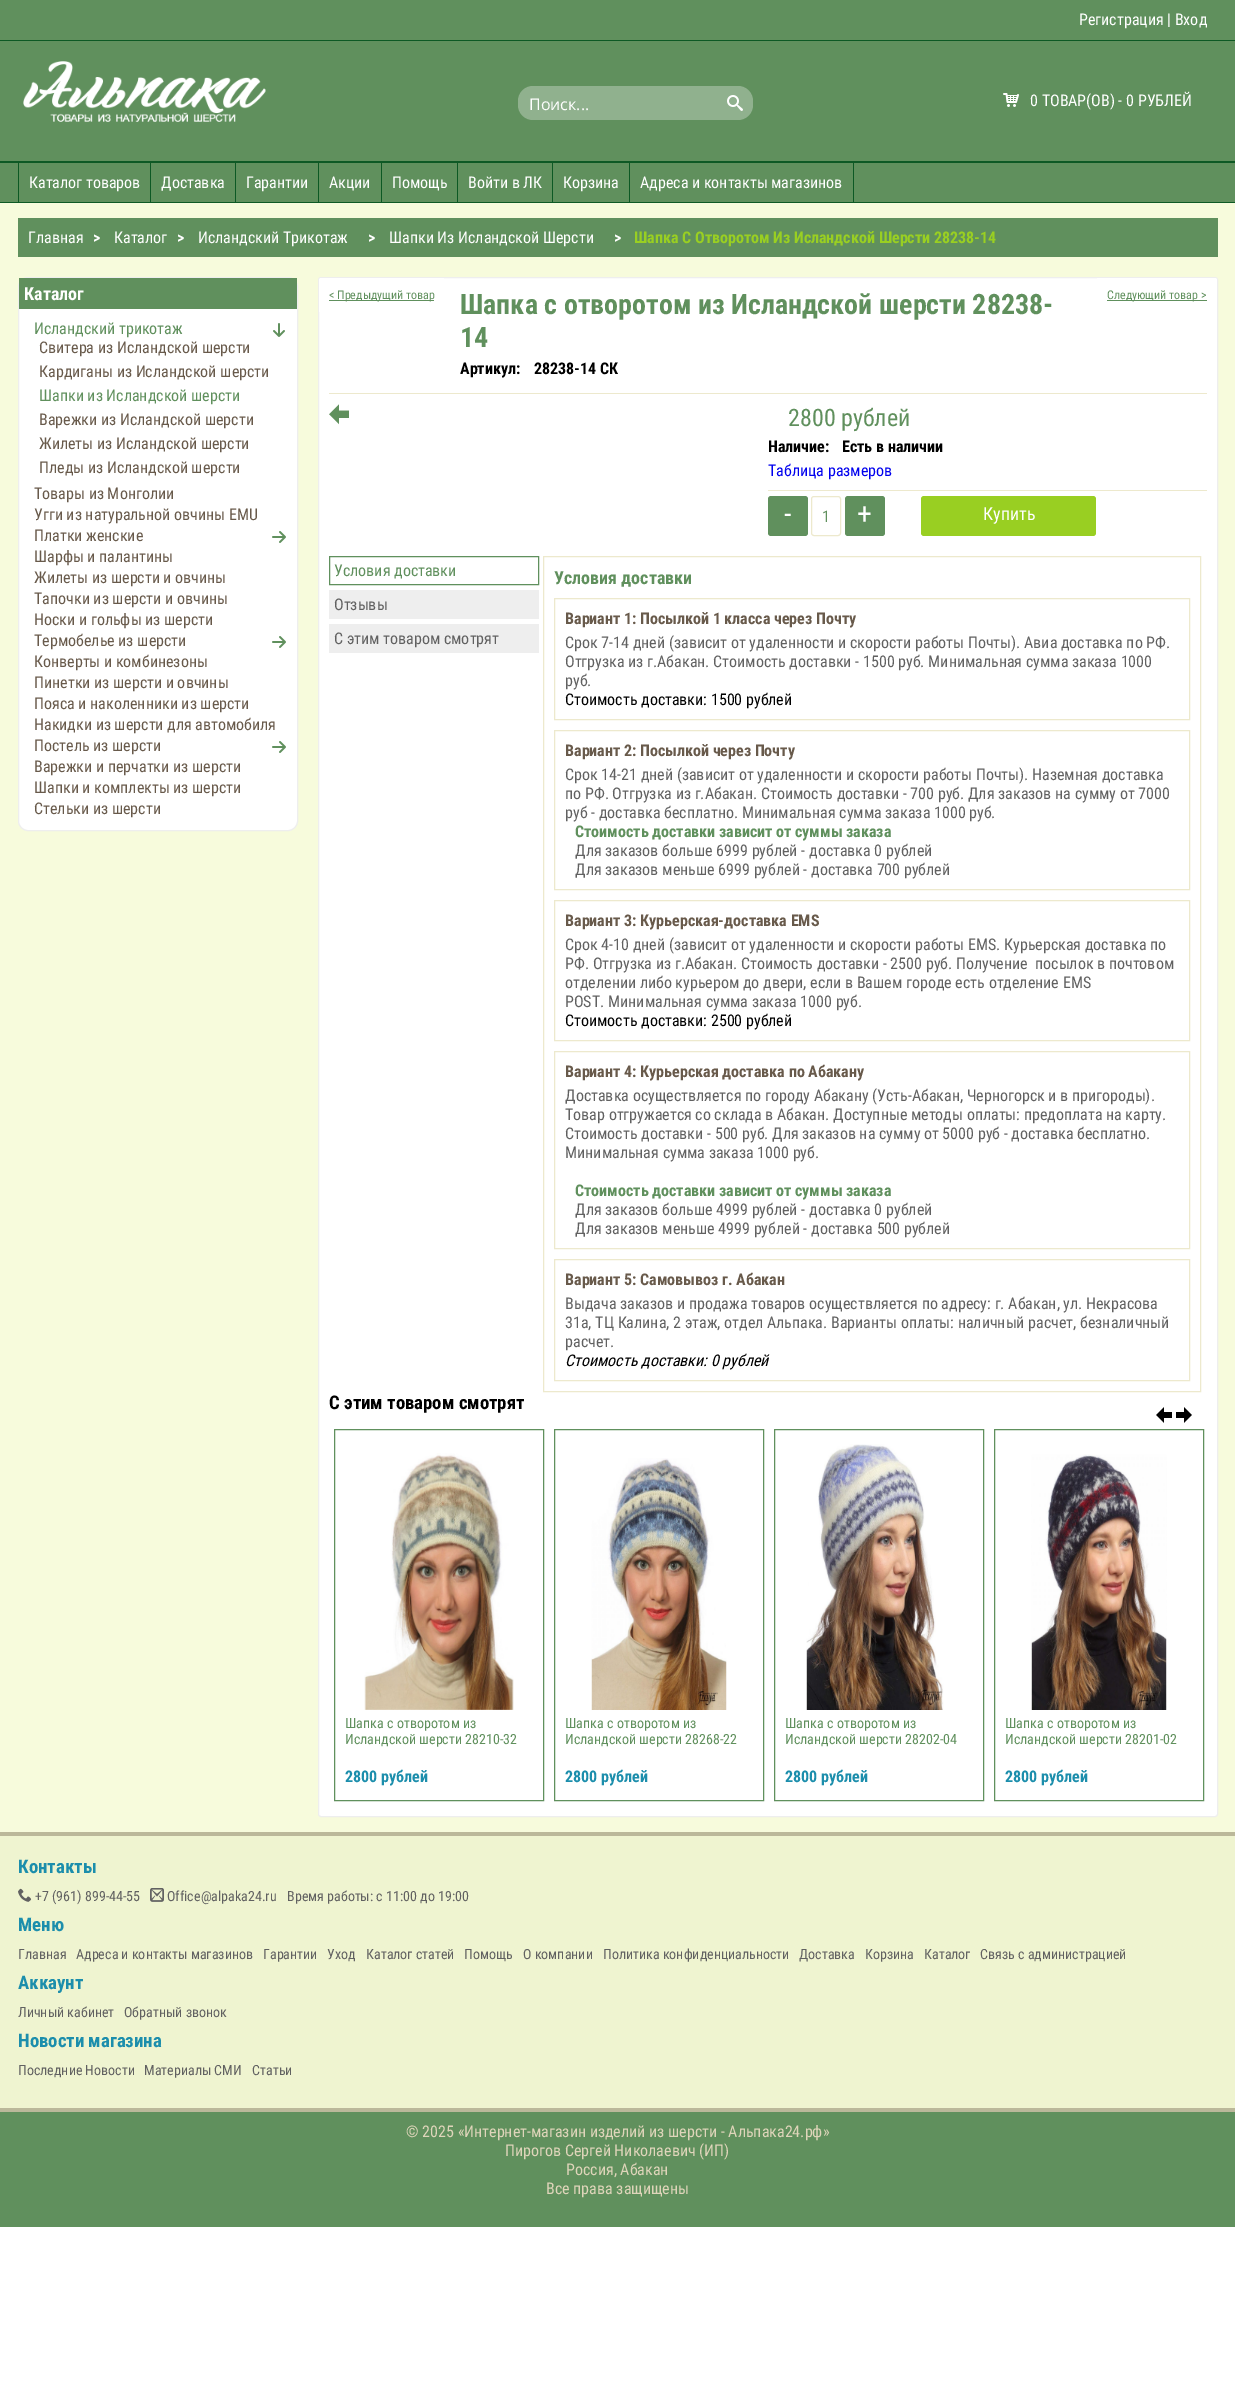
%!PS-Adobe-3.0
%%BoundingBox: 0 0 1235 2408
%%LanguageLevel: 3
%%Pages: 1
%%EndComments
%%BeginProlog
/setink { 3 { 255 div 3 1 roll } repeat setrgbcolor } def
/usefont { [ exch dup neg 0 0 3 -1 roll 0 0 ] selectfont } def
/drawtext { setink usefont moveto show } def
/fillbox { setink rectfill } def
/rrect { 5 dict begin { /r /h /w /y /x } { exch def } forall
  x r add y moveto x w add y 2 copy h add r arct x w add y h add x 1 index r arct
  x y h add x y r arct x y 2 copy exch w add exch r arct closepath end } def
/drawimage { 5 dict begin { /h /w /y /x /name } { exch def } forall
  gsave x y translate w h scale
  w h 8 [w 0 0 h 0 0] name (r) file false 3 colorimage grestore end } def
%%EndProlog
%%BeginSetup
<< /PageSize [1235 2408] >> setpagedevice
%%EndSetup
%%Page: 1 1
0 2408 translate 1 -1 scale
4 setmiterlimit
0 0 1235 2408 255 255 255 fillbox
0 0 1235 202 96 144 93 fillbox
0 202 1235 1 13 89 36 fillbox
(Регистрация | Вход) 1079 25 /RobotoCondensed-Regular 16 255 255 255 drawtext
0 40 1235 1 13 89 36 fillbox
0 161 1235 2 13 89 36 fillbox
(assets/img1.rgb) 23 61 243 61 drawimage
144 177 142 setink
518 86 235 34 15 rrect fill
(Поиск...) 529 110 /OpenSans-Regular 16 255 255 255 drawtext
(assets/img2.rgb) 727 95 16 16 drawimage
(assets/img3.rgb) 1003 93 16 14 drawimage
(0 ТОВАР\(ОВ\) - 0 РУБЛЕЙ) 1030 106 /RobotoCondensed-Regular 16 255 255 255 drawtext
150 163 1 39 13 89 36 fillbox
18 163 1 39 13 89 36 fillbox
(Каталог товаров) 29 188 /RobotoCondensed-Regular 16 255 255 255 drawtext
235 163 1 39 13 89 36 fillbox
(Доставка) 161 188 /RobotoCondensed-Regular 16 255 255 255 drawtext
318 163 1 39 13 89 36 fillbox
(Гарантии) 246 188 /RobotoCondensed-Regular 16 255 255 255 drawtext
381 163 1 39 13 89 36 fillbox
(Акции) 329 188 /RobotoCondensed-Regular 16 255 255 255 drawtext
457 163 1 39 13 89 36 fillbox
(Помощь) 392 188 /RobotoCondensed-Regular 16 255 255 255 drawtext
552 163 1 39 13 89 36 fillbox
(Войти в ЛК) 468 188 /RobotoCondensed-Regular 16 255 255 255 drawtext
629 163 1 39 13 89 36 fillbox
(Корзина) 563 188 /RobotoCondensed-Regular 16 255 255 255 drawtext
853 163 1 39 13 89 36 fillbox
(Адреса и контакты магазинов) 640 188 /RobotoCondensed-Regular 16 255 255 255 drawtext
0 203 1235 1629 247 251 220 fillbox
0 1832 1235 4 187 184 154 fillbox
18 218 1200 39 96 144 93 fillbox
(Главная) 28 243 /RobotoCondensed-Regular 16 255 255 255 drawtext
(>) 93 243 /RobotoCondensed-Bold 16 255 255 255 drawtext
(Каталог) 114 243 /RobotoCondensed-Regular 16 255 255 255 drawtext
(>) 177 243 /RobotoCondensed-Bold 16 255 255 255 drawtext
(Исландский Трикотаж) 198 243 /RobotoCondensed-Regular 16 255 255 255 drawtext
(>) 368 243 /RobotoCondensed-Bold 16 255 255 255 drawtext
(Шапки Из Исландской Шерсти) 389 243 /RobotoCondensed-Regular 16 255 255 255 drawtext
(>) 614 243 /RobotoCondensed-Bold 16 255 255 255 drawtext
(Шапка С Отворотом Из Исландской Шерсти 28238-14) 634 243 /RobotoCondensed-Bold 16 153 207 34 drawtext
255 255 255 setink
18.5 277.5 279 553 9.5 rrect gsave fill grestore
238 238 238 setink
stroke
19 278 278 31 96 144 93 fillbox
(Каталог) 24 300 /RobotoCondensed-Bold 18 255 255 255 drawtext
(Исландский трикотаж) 34 334 /RobotoCondensed-Regular 16 96 144 93 drawtext
(assets/img4.rgb) 273 323 12 14 drawimage
(Свитера из Исландской шерсти) 39 353 /RobotoCondensed-Regular 16 104 90 75 drawtext
(Кардиганы из Исландской шерсти) 39 377 /RobotoCondensed-Regular 16 104 90 75 drawtext
(Шапки из Исландской шерсти) 39 401 /RobotoCondensed-Regular 16 96 144 93 drawtext
(Варежки из Исландской шерсти) 39 425 /RobotoCondensed-Regular 16 104 90 75 drawtext
(Жилеты из Исландской шерсти) 39 449 /RobotoCondensed-Regular 16 104 90 75 drawtext
(Пледы из Исландской шерсти) 39 473 /RobotoCondensed-Regular 16 104 90 75 drawtext
(Товары из Монголии) 34 499 /RobotoCondensed-Regular 16 104 90 75 drawtext
(Угги из натуральной овчины EMU) 34 520 /RobotoCondensed-Regular 16 104 90 75 drawtext
(Платки женские) 34 541 /RobotoCondensed-Regular 16 104 90 75 drawtext
(assets/img5.rgb) 272 531 14 12 drawimage
(Шарфы и палантины) 34 562 /RobotoCondensed-Regular 16 104 90 75 drawtext
(Жилеты из шерсти и овчины) 34 583 /RobotoCondensed-Regular 16 104 90 75 drawtext
(Тапочки из шерсти и овчины) 34 604 /RobotoCondensed-Regular 16 104 90 75 drawtext
(Носки и гольфы из шерсти) 34 625 /RobotoCondensed-Regular 16 104 90 75 drawtext
(Термобелье из шерсти) 34 646 /RobotoCondensed-Regular 16 104 90 75 drawtext
(assets/img5.rgb) 272 636 14 12 drawimage
(Конверты и комбинезоны) 34 667 /RobotoCondensed-Regular 16 104 90 75 drawtext
(Пинетки из шерсти и овчины) 34 688 /RobotoCondensed-Regular 16 104 90 75 drawtext
(Пояса и наколенники из шерсти) 34 709 /RobotoCondensed-Regular 16 104 90 75 drawtext
(Накидки из шерсти для автомобиля) 34 730 /RobotoCondensed-Regular 16 104 90 75 drawtext
(Постель из шерсти) 34 751 /RobotoCondensed-Regular 16 104 90 75 drawtext
(assets/img5.rgb) 272 741 14 12 drawimage
(Варежки и перчатки из шерсти) 34 772 /RobotoCondensed-Regular 16 104 90 75 drawtext
(Шапки и комплекты из шерсти) 34 793 /RobotoCondensed-Regular 16 104 90 75 drawtext
(Стельки из шерсти) 34 814 /RobotoCondensed-Regular 16 104 90 75 drawtext
255 255 255 setink
318.5 277.5 899 1539 2.5 rrect gsave fill grestore
238 238 238 setink
stroke
255 255 255 setink
321 278 moveto 444 278 lineto 444 312 lineto 319 312 lineto 319 280 lineto 319 279 320 278 321 278 curveto closepath fill
329 300 105 1 96 144 93 fillbox
(< Предыдущий товар) 329 299 /RobotoCondensed-Regular 12 96 144 93 drawtext
255 255 255 setink
1097 278 moveto 1215 278 lineto 1216 278 1217 279 1217 280 curveto 1217 312 lineto 1097 312 lineto closepath fill
1107 300 100 1 96 144 93 fillbox
(Следующий товар >) 1107 299 /RobotoCondensed-Regular 12 96 144 93 drawtext
329 393 878 1 237 233 205 fillbox
(Шапка с отворотом из Исландской шерсти 28238-) 460 314 /RobotoCondensed-Bold 28 96 144 93 drawtext
(14) 460 347 /RobotoCondensed-Bold 28 96 144 93 drawtext
(Артикул:) 460 374 /RobotoCondensed-Bold 16 0 0 0 drawtext
(28238-14 СК) 534 374 /RobotoCondensed-Bold 16 0 0 0 drawtext
(assets/img6.rgb) 329 404 20 21 drawimage
(2800 рублей) 788 426 /RobotoCondensed-Regular 24 96 144 93 drawtext
(Наличие:) 768 452 /RobotoCondensed-Bold 16 0 0 0 drawtext
(Есть в наличии) 842 452 /RobotoCondensed-Bold 16 0 0 0 drawtext
(Таблица размеров) 768 476 /RobotoCondensed-Regular 16 0 0 238 drawtext
768 490 439 1 237 233 205 fillbox
96 144 93 setink
768 496 40 40 3 rrect fill
(-) 784 524 /RobotoCondensed-Regular 30 255 255 255 drawtext
237 233 205 setink
811.5 496.5 29 39 2.5 rrect stroke
(1) 822 522 /RobotoCondensed-Regular 16 96 144 93 drawtext
845 496 40 40 3 rrect fill
(+) 857 524 /RobotoCondensed-Regular 30 255 255 255 drawtext
153 207 34 setink
921 496 175 40 3 rrect fill
(Купить) 983 520 /RobotoCondensed-Regular 18 255 255 255 drawtext
96 144 93 setink
329.5 556.5 209 28 rectstroke
(Условия доставки) 334 576 /RobotoCondensed-Regular 16 96 144 93 drawtext
329 590 210 29 238 238 238 fillbox
(Отзывы) 334 610 /RobotoCondensed-Regular 16 97 97 97 drawtext
329 624 210 29 238 238 238 fillbox
(С этим товаром смотрят) 334 644 /RobotoCondensed-Regular 16 97 97 97 drawtext
237 233 205 setink
543.5 556.5 657 835 rectstroke
(Условия доставки) 554 584 /RobotoCondensed-Bold 18 96 144 93 drawtext
237 233 205 setink
554.5 598.5 635 121 rectstroke
(Вариант 1: Посылкой 1 класса через Почту) 565 624 /RobotoCondensed-Bold 16 104 90 75 drawtext
(Срок 7-14 дней \(зависит от удаленности и скорости работы Почты\). Авиа доставка по РФ.) 565 648 /RobotoCondensed-Regular 16 97 97 97 drawtext
(Отгрузка из г.Абакан. Стоимость доставки - 1500 руб. Минимальная сумма заказа 1000) 565 667 /RobotoCondensed-Regular 16 97 97 97 drawtext
(руб.) 565 686 /RobotoCondensed-Regular 16 97 97 97 drawtext
(Стоимость доставки: 1500 рублей) 565 705 /RobotoCondensed-Regular 16 0 0 0 drawtext
237 233 205 setink
554.5 730.5 635 159 rectstroke
(Вариант 2: Посылкой через Почту) 565 756 /RobotoCondensed-Bold 16 104 90 75 drawtext
(Срок 14-21 дней \(зависит от удаленности и скорости работы Почты\). Наземная доставка) 565 780 /RobotoCondensed-Regular 16 97 97 97 drawtext
(по РФ. Отгрузка из г.Абакан. Стоимость доставки - 700 руб. Для заказов на сумму от 7000) 565 799 /RobotoCondensed-Regular 16 97 97 97 drawtext
(руб - доставка бесплатно. Минимальная сумма заказа 1000 руб.) 565 818 /RobotoCondensed-Regular 16 97 97 97 drawtext
(Стоимость доставки зависит от суммы заказа) 575 837 /RobotoCondensed-Bold 16 96 144 93 drawtext
(Для заказов больше 6999 рублей - доставка 0 рублей) 575 856 /RobotoCondensed-Regular 16 97 97 97 drawtext
(Для заказов меньше 6999 рублей - доставка 700 рублей) 575 875 /RobotoCondensed-Regular 16 97 97 97 drawtext
237 233 205 setink
554.5 900.5 635 140 rectstroke
(Вариант 3: Курьерская-доставка EMS) 565 926 /RobotoCondensed-Bold 16 104 90 75 drawtext
(Срок 4-10 дней \(зависит от удаленности и скорости работы EMS. Курьерская доставка по) 565 950 /RobotoCondensed-Regular 16 97 97 97 drawtext
(РФ. Отгрузка из г.Абакан. Стоимость доставки - 2500 руб. Получение  посылок в почтовом) 565 969 /RobotoCondensed-Regular 16 97 97 97 drawtext
(отделении либо курьером до двери, если в Вашем городе есть отделение EMS) 565 988 /RobotoCondensed-Regular 16 97 97 97 drawtext
(POST. Минимальная сумма заказа 1000 руб.) 565 1007 /RobotoCondensed-Regular 16 97 97 97 drawtext
(Стоимость доставки: 2500 рублей) 565 1026 /RobotoCondensed-Regular 16 0 0 0 drawtext
237 233 205 setink
554.5 1051.5 635 197 rectstroke
(Вариант 4: Курьерская доставка по Абакану) 565 1077 /RobotoCondensed-Bold 16 104 90 75 drawtext
(Доставка осуществляется по городу Абакану \(Усть-Абакан, Черногорск и в пригороды\).) 565 1101 /RobotoCondensed-Regular 16 97 97 97 drawtext
(Товар отгружается со склада в Абакан. Доступные методы оплаты: предоплата на карту.) 565 1120 /RobotoCondensed-Regular 16 97 97 97 drawtext
(Стоимость доставки - 500 руб. Для заказов на сумму от 5000 руб - доставка бесплатно.) 565 1139 /RobotoCondensed-Regular 16 97 97 97 drawtext
(Минимальная сумма заказа 1000 руб.) 565 1158 /RobotoCondensed-Regular 16 97 97 97 drawtext
(Стоимость доставки зависит от суммы заказа) 575 1196 /RobotoCondensed-Bold 16 96 144 93 drawtext
(Для заказов больше 4999 рублей - доставка 0 рублей) 575 1215 /RobotoCondensed-Regular 16 97 97 97 drawtext
(Для заказов меньше 4999 рублей - доставка 500 рублей) 575 1234 /RobotoCondensed-Regular 16 97 97 97 drawtext
237 233 205 setink
554.5 1259.5 635 121 rectstroke
(Вариант 5: Самовывоз г. Абакан) 565 1285 /RobotoCondensed-Bold 16 104 90 75 drawtext
(Выдача заказов и продажа товаров осуществляется по адресу: г. Абакан, ул. Некрасова) 565 1309 /RobotoCondensed-Regular 16 97 97 97 drawtext
(31а, ТЦ Калина, 2 этаж, отдел Альпака. Варианты оплаты: наличный расчет, безналичный) 565 1328 /RobotoCondensed-Regular 16 97 97 97 drawtext
(расчет.) 565 1347 /RobotoCondensed-Regular 16 97 97 97 drawtext
(Стоимость доставки: 0 рублей) 565 1366 /RobotoCondensed-Italic 16 0 0 0 drawtext
(С этим товаром смотрят) 329 1409 /RobotoCondensed-Bold 18.75 0 0 0 drawtext
(assets/img7.rgb) 1156 1407 16 16 drawimage
(assets/img8.rgb) 1176 1407 16 16 drawimage
96 144 93 setink
334.5 1429.5 209 371 rectstroke
(assets/img9.rgb) 364 1453 150 257 drawimage
(Шапка с отворотом из) 345 1728 /RobotoCondensed-Regular 14 96 144 93 drawtext
(Исландской шерсти 28210-32) 345 1744 /RobotoCondensed-Regular 14 96 144 93 drawtext
(2800 рублей) 345 1782 /RobotoCondensed-Bold 16 28 142 172 drawtext
96 144 93 setink
554.5 1429.5 209 371 rectstroke
(assets/img10.rgb) 591 1458 136 252 drawimage
(Шапка с отворотом из) 565 1728 /RobotoCondensed-Regular 14 96 144 93 drawtext
(Исландской шерсти 28268-22) 565 1744 /RobotoCondensed-Regular 14 96 144 93 drawtext
(2800 рублей) 565 1782 /RobotoCondensed-Bold 16 28 142 172 drawtext
96 144 93 setink
774.5 1429.5 209 371 rectstroke
(assets/img11.rgb) 806 1444 138 266 drawimage
(Шапка с отворотом из) 785 1728 /RobotoCondensed-Regular 14 96 144 93 drawtext
(Исландской шерсти 28202-04) 785 1744 /RobotoCondensed-Regular 14 96 144 93 drawtext
(2800 рублей) 785 1782 /RobotoCondensed-Bold 16 28 142 172 drawtext
96 144 93 setink
994.5 1429.5 209 371 rectstroke
(assets/img12.rgb) 1031 1454 136 256 drawimage
(Шапка с отворотом из) 1005 1728 /RobotoCondensed-Regular 14 96 144 93 drawtext
(Исландской шерсти 28201-02) 1005 1744 /RobotoCondensed-Regular 14 96 144 93 drawtext
(2800 рублей) 1005 1782 /RobotoCondensed-Bold 16 28 142 172 drawtext
0 1836 1235 272 239 244 208 fillbox
0 2108 1235 4 187 184 154 fillbox
(Контакты) 18 1873 /RobotoCondensed-Bold 18.75 28 142 172 drawtext
(assets/img13.rgb) 18 1888 14 14 drawimage
(+7 \(961\) 899-44-55) 35 1901 /RobotoCondensed-Regular 14 97 97 97 drawtext
(assets/img14.rgb) 150 1888 14 14 drawimage
(Office@alpaka24.ru) 167 1901 /RobotoCondensed-Regular 14 97 97 97 drawtext
(Время работы: с 11:00 до 19:00) 287 1901 /RobotoCondensed-Regular 14 97 97 97 drawtext
(Меню) 18 1931 /RobotoCondensed-Bold 18.75 28 142 172 drawtext
(Главная) 18 1959 /RobotoCondensed-Regular 14 97 97 97 drawtext
(Адреса и контакты магазинов) 76 1959 /RobotoCondensed-Regular 14 97 97 97 drawtext
(Гарантии) 263 1959 /RobotoCondensed-Regular 14 97 97 97 drawtext
(Уход) 327 1959 /RobotoCondensed-Regular 14 97 97 97 drawtext
(Каталог статей) 366 1959 /RobotoCondensed-Regular 14 97 97 97 drawtext
(Помощь) 464 1959 /RobotoCondensed-Regular 14 97 97 97 drawtext
(О компании) 523 1959 /RobotoCondensed-Regular 14 97 97 97 drawtext
(Политика конфиденциальности) 603 1959 /RobotoCondensed-Regular 14 97 97 97 drawtext
(Доставка) 799 1959 /RobotoCondensed-Regular 14 97 97 97 drawtext
(Корзина) 865 1959 /RobotoCondensed-Regular 14 97 97 97 drawtext
(Каталог) 924 1959 /RobotoCondensed-Regular 14 97 97 97 drawtext
(Связь с администрацией) 980 1959 /RobotoCondensed-Regular 14 97 97 97 drawtext
(Аккаунт) 18 1989 /RobotoCondensed-Bold 18.75 28 142 172 drawtext
(Личный кабинет) 18 2017 /RobotoCondensed-Regular 14 97 97 97 drawtext
(Обратный звонок) 124 2017 /RobotoCondensed-Regular 14 97 97 97 drawtext
(Новости магазина) 18 2047 /RobotoCondensed-Bold 18.75 28 142 172 drawtext
(Последние Новости) 18 2075 /RobotoCondensed-Regular 14 97 97 97 drawtext
(Материалы СМИ) 144 2075 /RobotoCondensed-Regular 14 97 97 97 drawtext
(Статьи) 252 2075 /RobotoCondensed-Regular 14 97 97 97 drawtext
0 2112 1235 115 96 144 93 fillbox
(© 2025 «Интернет-магазин изделий из шерсти - Альпака24.рф») 406 2137 /RobotoCondensed-Regular 16 223 213 186 drawtext
(Пирогов Сергей Николаевич \(ИП\)) 505 2156 /RobotoCondensed-Regular 16 223 213 186 drawtext
(Россия, Абакан) 566 2175 /RobotoCondensed-Regular 16 223 213 186 drawtext
(Все права защищены) 546 2194 /RobotoCondensed-Regular 16 223 213 186 drawtext
showpage
%%EOF
